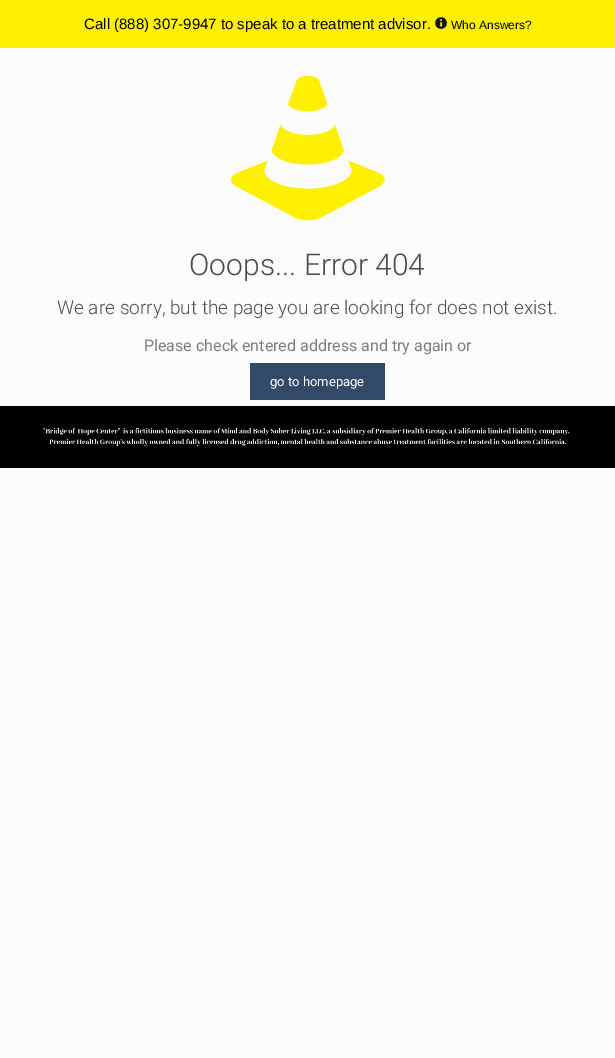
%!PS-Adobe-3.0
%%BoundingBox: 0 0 615 1058
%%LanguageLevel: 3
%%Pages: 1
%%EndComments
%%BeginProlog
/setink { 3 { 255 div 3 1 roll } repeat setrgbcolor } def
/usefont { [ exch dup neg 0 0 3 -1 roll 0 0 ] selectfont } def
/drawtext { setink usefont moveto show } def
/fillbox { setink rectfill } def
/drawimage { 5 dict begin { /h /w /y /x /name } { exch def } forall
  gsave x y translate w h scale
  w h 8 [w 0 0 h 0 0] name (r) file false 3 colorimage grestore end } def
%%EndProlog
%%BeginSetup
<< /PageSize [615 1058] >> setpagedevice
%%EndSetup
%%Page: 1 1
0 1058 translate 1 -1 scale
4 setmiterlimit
0 0 615 1058 252 252 252 fillbox
0 0 615 48 255 240 0 fillbox
(Call \(888\) 307-9947 to speak to a treatment advisor.) 84 29 /LiberationSans-Regular 15 0 0 0 drawtext
(assets/img1.rgb) 435 17 12 12 drawimage
(Who Answers?) 451 29 /LiberationSans-Regular 12 0 0 0 drawtext
(assets/img2.rgb) 231 76 154 145 drawimage
(Ooops... Error 404) 189 275 /Roboto-Light 30 76 76 76 drawtext
(We are sorry, but the page you are looking for does not exist.) 57 314 /Roboto-Light 19 76 76 76 drawtext
(Please check entered address and try again or) 144 351 /Roboto-Regular 16 126 126 126 drawtext
250 363 135 37 50 73 104 fillbox
(go to homepage) 270 386 /Roboto-Regular 13 255 255 255 drawtext
(assets/img3.rgb) 0 406 615 62 drawimage
showpage
%%EOF
